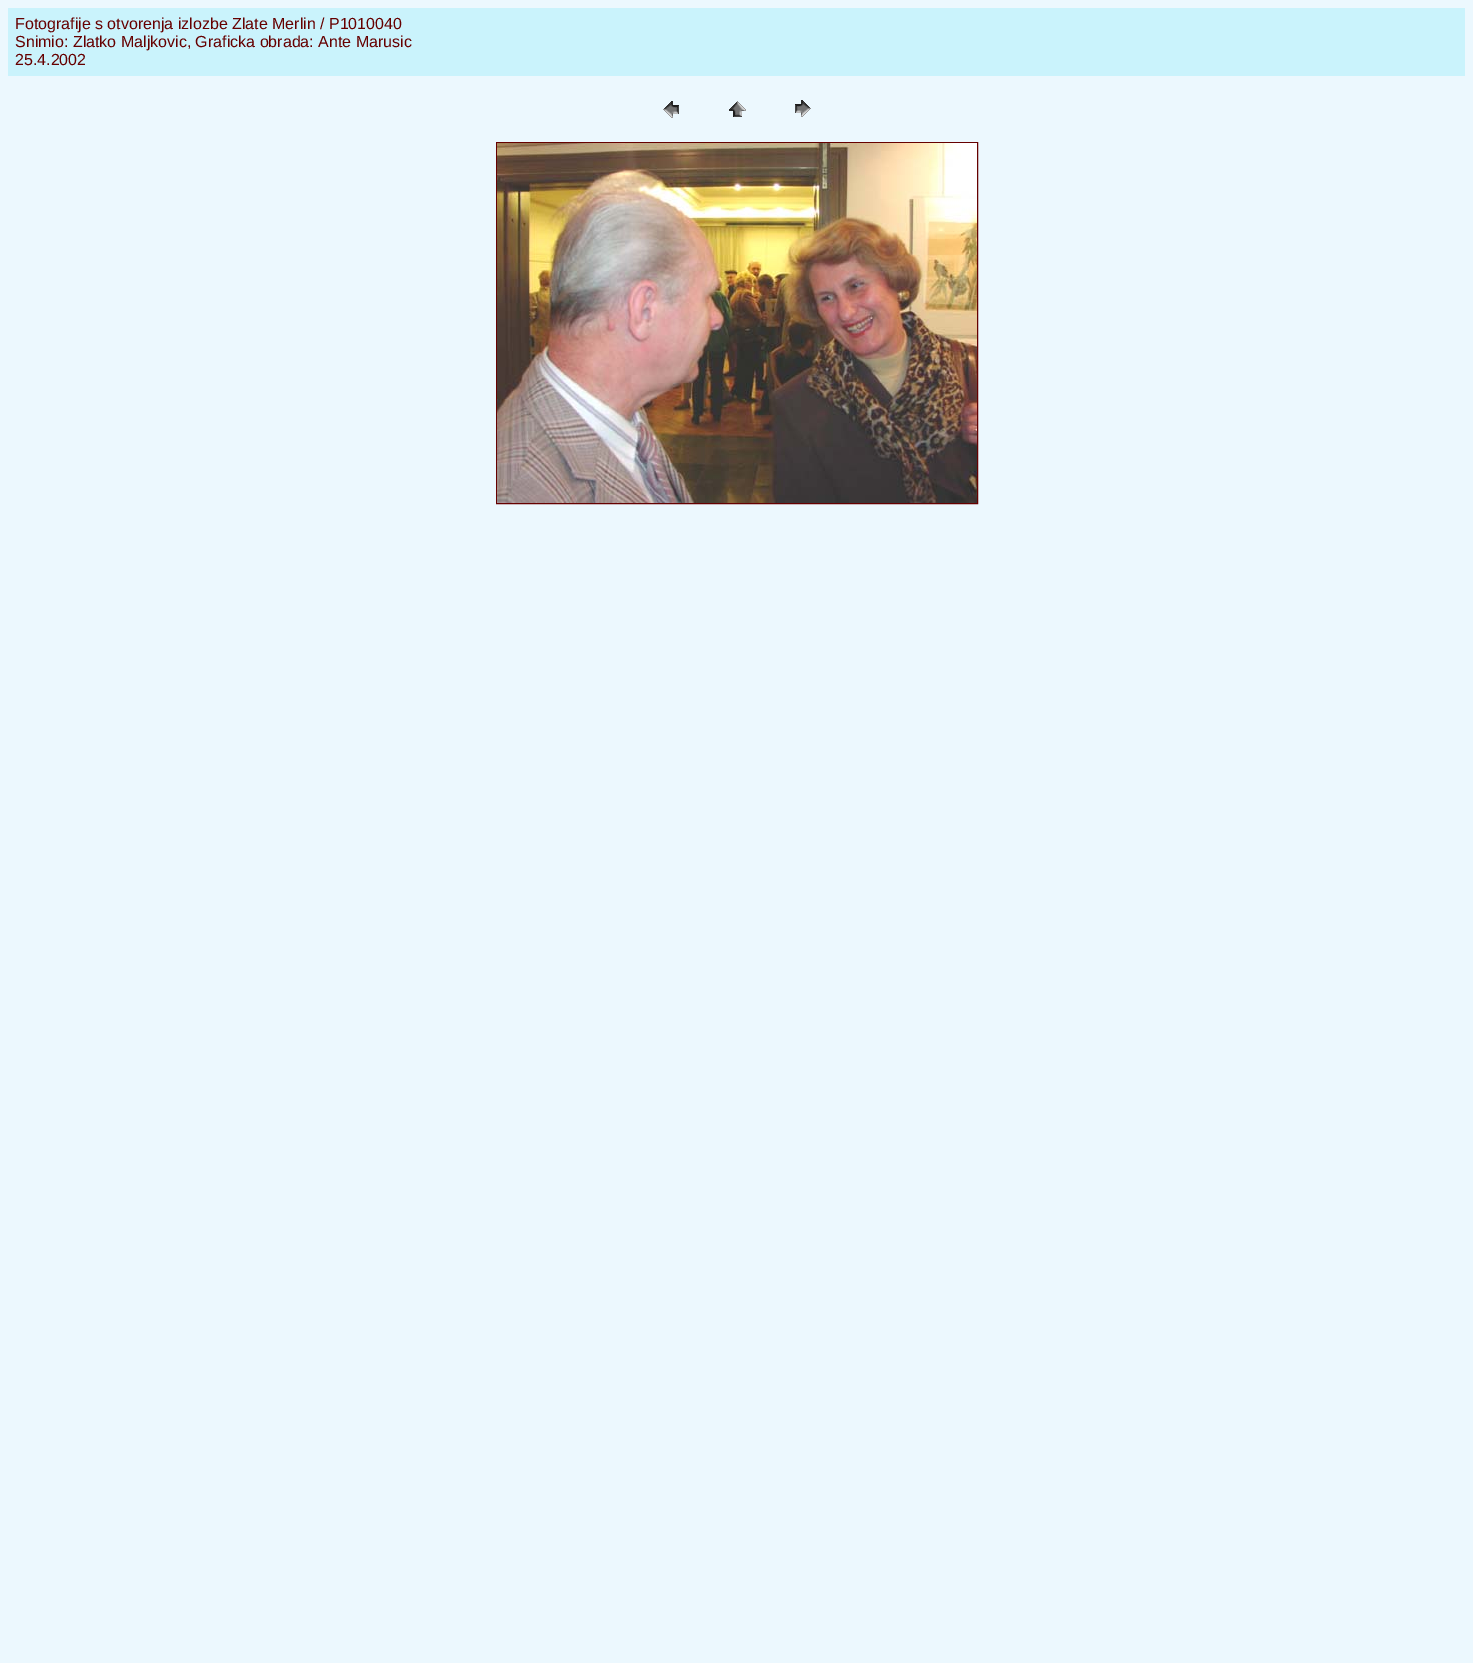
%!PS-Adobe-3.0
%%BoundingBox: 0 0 1473 1663
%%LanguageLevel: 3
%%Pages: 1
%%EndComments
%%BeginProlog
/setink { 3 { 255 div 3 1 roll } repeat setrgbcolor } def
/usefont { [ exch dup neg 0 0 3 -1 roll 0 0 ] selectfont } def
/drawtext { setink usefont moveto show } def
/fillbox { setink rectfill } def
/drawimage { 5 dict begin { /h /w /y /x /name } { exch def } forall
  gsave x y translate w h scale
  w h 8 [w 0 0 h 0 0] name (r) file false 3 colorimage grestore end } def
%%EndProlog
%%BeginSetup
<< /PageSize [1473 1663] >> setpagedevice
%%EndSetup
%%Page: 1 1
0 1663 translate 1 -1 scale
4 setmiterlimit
0 0 1473 1663 236 248 254 fillbox
8 8 1457 68 202 243 252 fillbox
(Fotografije s otvorenja izlozbe Zlate Merlin / P1010040) 15 29 /LiberationSans-Regular 16 102 0 0 drawtext
(Snimio: Zlatko Maljkovic, Graficka obrada: Ante Marusic) 15 47 /LiberationSans-Regular 16 102 0 0 drawtext
(25.4.2002) 15 65 /LiberationSans-Regular 16 102 0 0 drawtext
(assets/img1.rgb) 663 101 16 17 drawimage
(assets/img2.rgb) 729 101 17 16 drawimage
(assets/img3.rgb) 795 100 16 17 drawimage
496.5 142.5 481 361 rectstroke
(assets/img4.rgb) 497 143 480 360 drawimage
showpage
%%EOF
